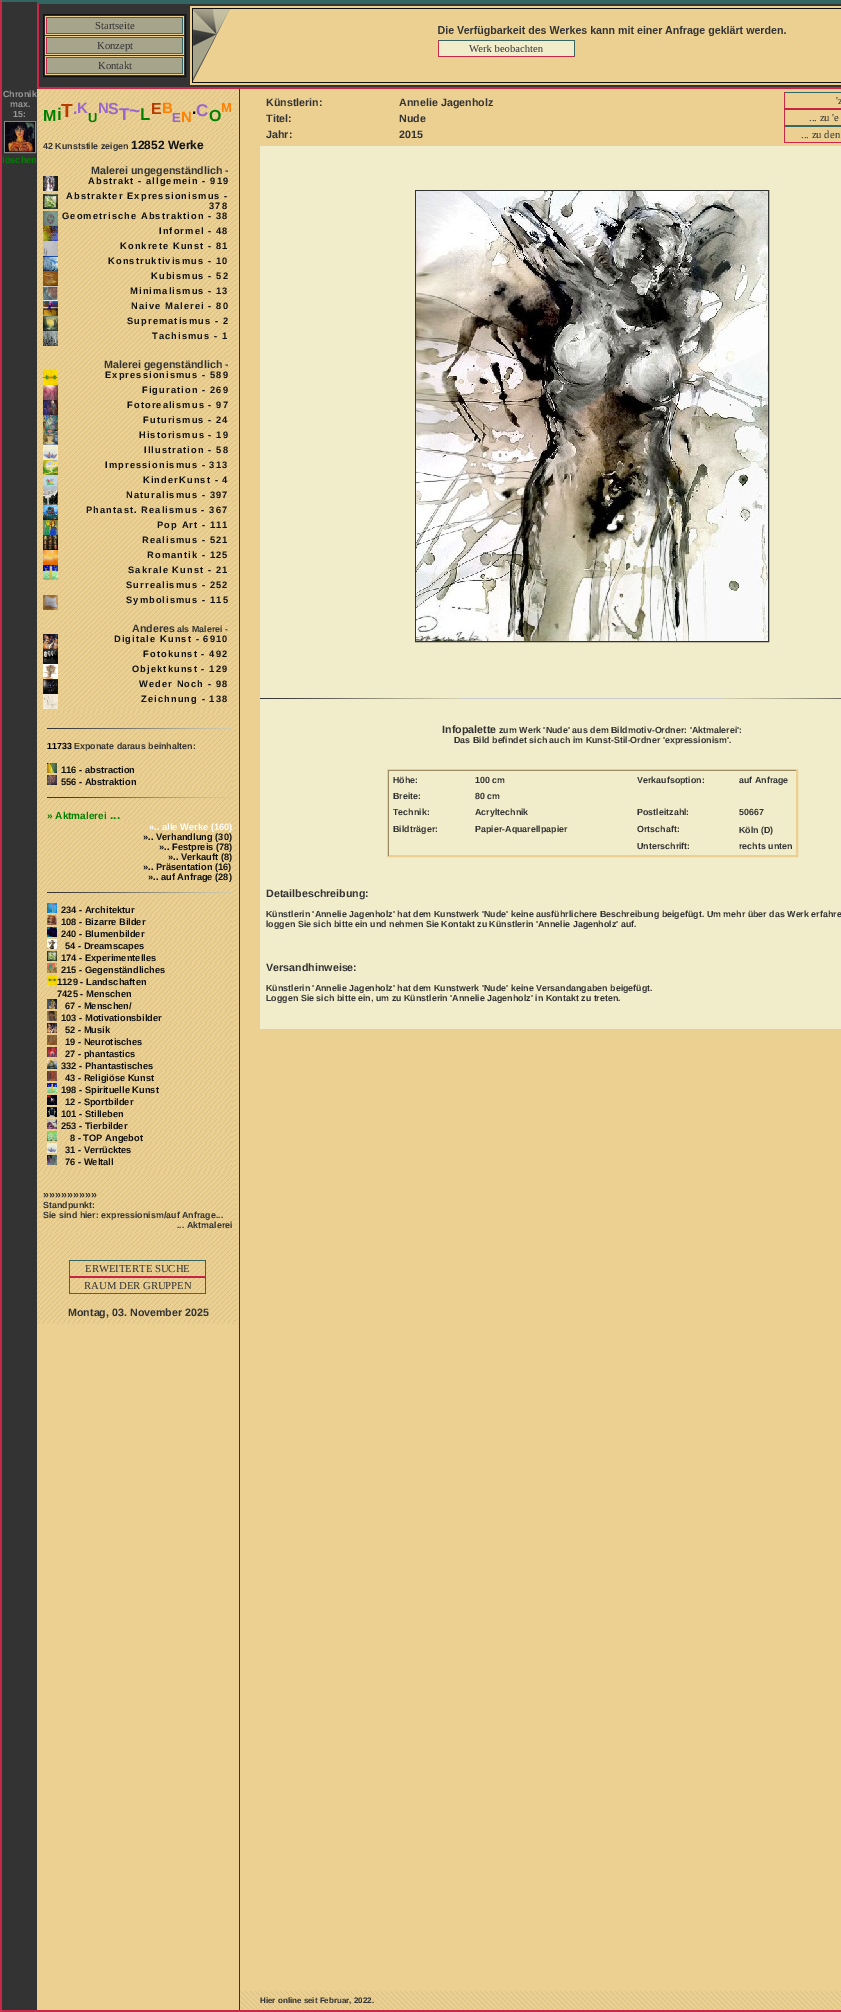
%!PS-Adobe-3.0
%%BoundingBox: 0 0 841 2012
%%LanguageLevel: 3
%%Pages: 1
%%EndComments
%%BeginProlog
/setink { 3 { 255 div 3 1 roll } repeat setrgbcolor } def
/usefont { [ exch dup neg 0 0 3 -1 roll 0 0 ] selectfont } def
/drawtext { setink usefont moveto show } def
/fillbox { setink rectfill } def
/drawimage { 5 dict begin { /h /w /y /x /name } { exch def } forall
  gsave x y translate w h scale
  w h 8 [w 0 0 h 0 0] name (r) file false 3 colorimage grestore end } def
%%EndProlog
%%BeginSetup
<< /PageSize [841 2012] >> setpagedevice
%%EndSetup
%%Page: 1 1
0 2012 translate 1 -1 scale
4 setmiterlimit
0 0 841 2012 235 208 146 fillbox
51 102 99 setink
0 0 moveto 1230 0 lineto 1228 2 lineto 2 2 lineto closepath fill
201 39 72 setink
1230 2012 moveto 0 2012 lineto 2 2010 lineto 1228 2010 lineto closepath fill
0 2012 moveto 0 0 lineto 2 2 lineto 2 2010 lineto closepath fill
2 2 839 87 51 51 51 fillbox
51 102 99 setink
37 2 moveto 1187 2 lineto 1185 4 lineto 39 4 lineto closepath fill
201 39 72 setink
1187 89 moveto 37 89 lineto 39 87 lineto 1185 87 lineto closepath fill
37 89 moveto 37 2 lineto 39 4 lineto 39 87 lineto closepath fill
17 17 17 setink
43.5 14.5 142 62 rectstroke
45 16 139 19 235 208 146 fillbox
47 18 135 15 167 164 140 fillbox
46 17 137 1 51 102 99 fillbox
182 17 1 17 51 102 99 fillbox
46 33 137 1 201 39 72 fillbox
46 17 1 17 201 39 72 fillbox
(Startseite) 95 29 /LiberationSerif-Regular 10.7 51 51 51 drawtext
45 36 139 19 235 208 146 fillbox
47 38 135 15 167 164 140 fillbox
46 37 137 1 51 102 99 fillbox
182 37 1 17 51 102 99 fillbox
46 53 137 1 201 39 72 fillbox
46 37 1 17 201 39 72 fillbox
(Konzept) 97 49 /LiberationSerif-Regular 10.7 51 51 51 drawtext
45 56 139 19 235 208 146 fillbox
47 58 135 15 167 164 140 fillbox
46 57 137 1 51 102 99 fillbox
182 57 1 17 51 102 99 fillbox
46 73 137 1 201 39 72 fillbox
46 57 1 17 201 39 72 fillbox
(Kontakt) 98 69 /LiberationSerif-Regular 10.7 51 51 51 drawtext
190 6 651 79 235 208 146 fillbox
(assets/img1.rgb) 192 8 649 75 drawimage
2 89 35 1921 51 51 51 fillbox
(Chronik) 3 97 /LiberationSans-Bold 8.9 153 153 153 drawtext
(max.) 10 107 /LiberationSans-Bold 8.9 153 153 153 drawtext
(15:) 13 117 /LiberationSans-Bold 8.9 153 153 153 drawtext
133 133 133 setink
4.5 121.5 31 31 rectstroke
(assets/img2.rgb) 5 122 30 30 drawimage
(löschen) 2 163 /LiberationSans-Bold 9.3 0 128 0 drawtext
(assets/img3.rgb) 37 89 201 1235 drawimage
(assets/img4.rgb) 40 92 195 40 drawimage
57 100 139 1 235 208 146 fillbox
(assets/img5.rgb) 43 100 14 25 drawimage
(M) 43 121 /LiberationSans-Bold 16 0 128 0 drawtext
(assets/img6.rgb) 57 101 4 24 drawimage
(i) 57 120 /LiberationSans-Bold 17 0 128 0 drawtext
(assets/img7.rgb) 61 100 12 25 drawimage
(T) 61 117 /LiberationSans-Bold 19 184 60 0 drawtext
(assets/img6.rgb) 73 101 4 24 drawimage
(.) 73 114 /LiberationSans-Bold 16 153 102 204 drawtext
(assets/img8.rgb) 77 100 11 25 drawimage
(K) 77 113 /LiberationSans-Bold 15 153 102 204 drawtext
(assets/img9.rgb) 88 100 10 25 drawimage
(U) 88 122 /LiberationSans-Bold 13 0 128 0 drawtext
(assets/img9.rgb) 98 100 10 25 drawimage
(N) 98 113 /LiberationSans-Bold 15 153 102 204 drawtext
(assets/img8.rgb) 108 100 11 25 drawimage
(S) 108 114 /LiberationSans-Bold 16 153 102 204 drawtext
(assets/img9.rgb) 119 100 10 25 drawimage
(assets/img8.rgb) 129 100 11 25 drawimage
(T) 119 120 /LiberationSans-Bold 17 153 102 204 drawtext
(~) 129 117 /LiberationSans-Bold 19 153 102 204 drawtext
(assets/img8.rgb) 140 100 11 25 drawimage
(L) 140 120 /LiberationSans-Bold 17 0 128 0 drawtext
(assets/img8.rgb) 151 100 11 25 drawimage
(E) 151 114 /LiberationSans-Bold 16 184 60 0 drawtext
(assets/img9.rgb) 162 100 10 25 drawimage
(B) 162 113 /LiberationSans-Bold 15 255 128 0 drawtext
(assets/img10.rgb) 172 100 9 25 drawimage
(E) 172 122 /LiberationSans-Bold 13 153 102 204 drawtext
(assets/img8.rgb) 181 100 11 25 drawimage
(N) 181 122 /LiberationSans-Bold 15 255 128 0 drawtext
(assets/img6.rgb) 192 101 4 24 drawimage
(.) 192 114 /LiberationSans-Bold 16 0 0 0 drawtext
(assets/img11.rgb) 196 100 13 25 drawimage
(C) 196 116 /LiberationSans-Bold 17 153 102 204 drawtext
(assets/img7.rgb) 209 100 12 25 drawimage
(O) 209 121 /LiberationSans-Bold 16 0 128 0 drawtext
(assets/img8.rgb) 221 100 11 25 drawimage
(M) 221 112 /LiberationSans-Bold 13 255 128 0 drawtext
(assets/img12.rgb) 40 135 195 577 drawimage
(assets/img13.rgb) 43 138 185 14 drawimage
(42 Kunststile zeigen) 43 149 /LiberationSans-Bold 8.9 51 51 51 drawtext
(12852 Werke) 131 149 /LiberationSans-Bold 12 17 17 17 drawtext
(assets/img14.rgb) 43 152 185 24 drawimage
(assets/img16.rgb) 58 176 170 15 drawimage
(Malerei ungegenständlich -) 91 174 /LiberationSans-Bold 10.7 51 51 51 drawtext
(assets/img15.rgb) 43 176 15 15 drawimage
/LiberationSans-Bold 9.3 usefont
17 17 17 setink
88 184 moveto 1.1 0 (Abstrakt - allgemein - 919) ashow
(assets/img17.rgb) 43 191 15 20 drawimage
(assets/img18.rgb) 43 194 15 15 drawimage
(assets/img19.rgb) 58 191 170 20 drawimage
66 199 moveto 1.1 0 (Abstrakter Expressionismus -) ashow
209 209 moveto 1.1 0 (378) ashow
(assets/img20.rgb) 43 211 15 15 drawimage
(assets/img16.rgb) 58 211 170 15 drawimage
62 219 moveto 1.1 0 (Geometrische Abstraktion - 38) ashow
(assets/img21.rgb) 43 226 15 15 drawimage
(assets/img16.rgb) 58 226 170 15 drawimage
159 234 moveto 1.1 0 (Informel - 48) ashow
(assets/img22.rgb) 43 241 15 15 drawimage
(assets/img16.rgb) 58 241 170 15 drawimage
120 249 moveto 1.1 0 (Konkrete Kunst - 81) ashow
(assets/img23.rgb) 43 256 15 15 drawimage
(assets/img16.rgb) 58 256 170 15 drawimage
108 264 moveto 1.1 0 (Konstruktivismus - 10) ashow
(assets/img24.rgb) 43 271 15 15 drawimage
(assets/img16.rgb) 58 271 170 15 drawimage
151 279 moveto 1.1 0 (Kubismus - 52) ashow
(assets/img25.rgb) 43 286 15 15 drawimage
(assets/img16.rgb) 58 286 170 15 drawimage
130 294 moveto 1.1 0 (Minimalismus - 13) ashow
(assets/img26.rgb) 43 301 15 15 drawimage
(assets/img16.rgb) 58 301 170 15 drawimage
131 309 moveto 1.1 0 (Naive Malerei - 80) ashow
(assets/img27.rgb) 43 316 15 15 drawimage
(assets/img16.rgb) 58 316 170 15 drawimage
127 324 moveto 1.1 0 (Suprematismus - 2) ashow
(assets/img28.rgb) 43 331 15 15 drawimage
(assets/img16.rgb) 58 331 170 15 drawimage
152 339 moveto 1.1 0 (Tachismus - 1) ashow
(assets/img14.rgb) 43 346 185 24 drawimage
(assets/img16.rgb) 58 370 170 15 drawimage
(Malerei gegenständlich -) 104 368 /LiberationSans-Bold 10.7 51 51 51 drawtext
(assets/img29.rgb) 43 370 15 15 drawimage
/LiberationSans-Bold 9.3 usefont
17 17 17 setink
105 378 moveto 1.1 0 (Expressionismus - 589) ashow
(assets/img30.rgb) 43 385 15 15 drawimage
(assets/img16.rgb) 58 385 170 15 drawimage
142 393 moveto 1.1 0 (Figuration - 269) ashow
(assets/img31.rgb) 43 400 15 15 drawimage
(assets/img16.rgb) 58 400 170 15 drawimage
127 408 moveto 1.1 0 (Fotorealismus - 97) ashow
(assets/img32.rgb) 43 415 15 15 drawimage
(assets/img16.rgb) 58 415 170 15 drawimage
143 423 moveto 1.1 0 (Futurismus - 24) ashow
(assets/img33.rgb) 43 430 15 15 drawimage
(assets/img16.rgb) 58 430 170 15 drawimage
139 438 moveto 1.1 0 (Historismus - 19) ashow
(assets/img34.rgb) 43 445 15 15 drawimage
(assets/img16.rgb) 58 445 170 15 drawimage
144 453 moveto 1.1 0 (Illustration - 58) ashow
(assets/img35.rgb) 43 460 15 15 drawimage
(assets/img16.rgb) 58 460 170 15 drawimage
105 468 moveto 1.1 0 (Impressionismus - 313) ashow
(assets/img36.rgb) 43 475 15 15 drawimage
(assets/img16.rgb) 58 475 170 15 drawimage
143 483 moveto 1.1 0 (KinderKunst - 4) ashow
(assets/img37.rgb) 43 490 15 15 drawimage
(assets/img16.rgb) 58 490 170 15 drawimage
126 498 moveto 1.1 0 (Naturalismus - 397) ashow
(assets/img38.rgb) 43 505 15 15 drawimage
(assets/img16.rgb) 58 505 170 15 drawimage
86 513 moveto 1.1 0 (Phantast. Realismus - 367) ashow
(assets/img39.rgb) 43 520 15 15 drawimage
(assets/img16.rgb) 58 520 170 15 drawimage
157 528 moveto 1.1 0 (Pop Art - 111) ashow
(assets/img40.rgb) 43 535 15 15 drawimage
(assets/img16.rgb) 58 535 170 15 drawimage
142 543 moveto 1.1 0 (Realismus - 521) ashow
(assets/img41.rgb) 43 550 15 15 drawimage
(assets/img16.rgb) 58 550 170 15 drawimage
147 558 moveto 1.1 0 (Romantik - 125) ashow
(assets/img42.rgb) 43 565 15 15 drawimage
(assets/img16.rgb) 58 565 170 15 drawimage
128 573 moveto 1.1 0 (Sakrale Kunst - 21) ashow
(assets/img43.rgb) 43 580 15 15 drawimage
(assets/img16.rgb) 58 580 170 15 drawimage
126 588 moveto 1.1 0 (Surrealismus - 252) ashow
(assets/img44.rgb) 43 595 15 15 drawimage
(assets/img16.rgb) 58 595 170 15 drawimage
126 603 moveto 1.1 0 (Symbolismus - 115) ashow
(assets/img14.rgb) 43 610 185 24 drawimage
(Anderes) 132 632 /LiberationSans-Bold 10.7 51 51 51 drawtext
(als Malerei -) 177 632 /LiberationSans-Bold 8.9 51 51 51 drawtext
(assets/img45.rgb) 43 634 15 15 drawimage
(assets/img16.rgb) 58 634 170 15 drawimage
/LiberationSans-Bold 9.3 usefont
17 17 17 setink
114 642 moveto 1.1 0 (Digitale Kunst - 6910) ashow
(assets/img46.rgb) 43 649 15 15 drawimage
(assets/img16.rgb) 58 649 170 15 drawimage
143 657 moveto 1.1 0 (Fotokunst - 492) ashow
(assets/img47.rgb) 43 664 15 15 drawimage
(assets/img16.rgb) 58 664 170 15 drawimage
132 672 moveto 1.1 0 (Objektkunst - 129) ashow
(assets/img48.rgb) 43 679 15 15 drawimage
(assets/img16.rgb) 58 679 170 15 drawimage
139 687 moveto 1.1 0 (Weder Noch - 98) ashow
(assets/img49.rgb) 43 694 15 15 drawimage
(assets/img16.rgb) 58 694 170 15 drawimage
141 702 moveto 1.1 0 (Zeichnung - 138) ashow
(assets/img50.rgb) 40 715 195 455 drawimage
(assets/img51.rgb) 47 718 185 45 drawimage
(assets/img52.rgb) 47 728 185 1 drawimage
(11733) 47 749 /LiberationSans-Bold 8.9 0 0 0 drawtext
(Exponate daraus beinhalten:) 74 749 /LiberationSans-Bold 8.9 51 51 51 drawtext
(assets/img53.rgb) 47 763 185 12 drawimage
(assets/img54.rgb) 47 763 10 10 drawimage
(116 - abstraction) 61 773 /LiberationSans-Bold 9.3 17 17 17 drawtext
(assets/img53.rgb) 47 775 185 12 drawimage
(assets/img55.rgb) 47 775 10 10 drawimage
(556 - Abstraktion) 61 785 /LiberationSans-Bold 9.3 17 17 17 drawtext
(assets/img56.rgb) 47 787 185 21 drawimage
(assets/img52.rgb) 47 797 185 1 drawimage
(assets/img13.rgb) 47 808 185 14 drawimage
(» Aktmalerei) 47 819 /LiberationSans-Bold 10 0 128 0 drawtext
(...) 110 819 /LiberationSans-Bold 12 0 128 0 drawtext
(assets/img57.rgb) 47 822 185 60 drawimage
(».. alle Werke \(160\)) 149 830 /LiberationSans-Bold 9.3 255 255 255 drawtext
(».. Verhandlung \(30\)) 143 840 /LiberationSans-Bold 9.3 17 17 17 drawtext
(».. Festpreis \(78\)) 159 850 /LiberationSans-Bold 9.3 17 17 17 drawtext
(».. Verkauft \(8\)) 168 860 /LiberationSans-Bold 9.3 17 17 17 drawtext
(».. Präsentation \(16\)) 143 870 /LiberationSans-Bold 9.3 17 17 17 drawtext
(».. auf Anfrage \(28\)) 148 880 /LiberationSans-Bold 9.3 17 17 17 drawtext
(assets/img56.rgb) 47 882 185 21 drawimage
(assets/img52.rgb) 47 892 185 1 drawimage
(assets/img53.rgb) 47 903 185 12 drawimage
(assets/img58.rgb) 47 903 10 10 drawimage
(234 - Architektur) 61 913 /LiberationSans-Bold 9.3 17 17 17 drawtext
(assets/img53.rgb) 47 915 185 12 drawimage
(assets/img59.rgb) 47 915 10 10 drawimage
(108 - Bizarre Bilder) 61 925 /LiberationSans-Bold 9.3 17 17 17 drawtext
(assets/img53.rgb) 47 927 185 12 drawimage
(assets/img60.rgb) 47 927 10 10 drawimage
(240 - Blumenbilder) 61 937 /LiberationSans-Bold 9.3 17 17 17 drawtext
(assets/img53.rgb) 47 939 185 12 drawimage
(assets/img61.rgb) 47 939 10 10 drawimage
(54 - Dreamscapes) 65 949 /LiberationSans-Bold 9.3 17 17 17 drawtext
(assets/img53.rgb) 47 951 185 12 drawimage
(assets/img62.rgb) 47 951 10 10 drawimage
(174 - Experimentelles) 61 961 /LiberationSans-Bold 9.3 17 17 17 drawtext
(assets/img53.rgb) 47 963 185 12 drawimage
(assets/img63.rgb) 47 963 10 10 drawimage
(215 - Gegenständliches) 61 973 /LiberationSans-Bold 9.3 17 17 17 drawtext
(assets/img53.rgb) 47 975 185 12 drawimage
(assets/img64.rgb) 47 975 10 10 drawimage
(1129 - Landschaften) 57 985 /LiberationSans-Bold 9.3 17 17 17 drawtext
(assets/img53.rgb) 47 987 185 12 drawimage
(7425 - Menschen) 57 997 /LiberationSans-Bold 9.3 17 17 17 drawtext
(assets/img53.rgb) 47 999 185 12 drawimage
(assets/img65.rgb) 47 999 10 10 drawimage
(67 - Menschen/) 65 1009 /LiberationSans-Bold 9.3 17 17 17 drawtext
(assets/img53.rgb) 47 1011 185 12 drawimage
(assets/img66.rgb) 47 1011 10 10 drawimage
(103 - Motivationsbilder) 61 1021 /LiberationSans-Bold 9.3 17 17 17 drawtext
(assets/img53.rgb) 47 1023 185 12 drawimage
(assets/img67.rgb) 47 1023 10 10 drawimage
(52 - Musik) 65 1033 /LiberationSans-Bold 9.3 17 17 17 drawtext
(assets/img53.rgb) 47 1035 185 12 drawimage
(assets/img68.rgb) 47 1035 10 10 drawimage
(19 - Neurotisches) 65 1045 /LiberationSans-Bold 9.3 17 17 17 drawtext
(assets/img53.rgb) 47 1047 185 12 drawimage
(assets/img69.rgb) 47 1047 10 10 drawimage
(27 - phantastics) 65 1057 /LiberationSans-Bold 9.3 17 17 17 drawtext
(assets/img53.rgb) 47 1059 185 12 drawimage
(assets/img70.rgb) 47 1059 10 10 drawimage
(332 - Phantastisches) 61 1069 /LiberationSans-Bold 9.3 17 17 17 drawtext
(assets/img53.rgb) 47 1071 185 12 drawimage
(assets/img71.rgb) 47 1071 10 10 drawimage
(43 - Religiöse Kunst) 65 1081 /LiberationSans-Bold 9.3 17 17 17 drawtext
(assets/img53.rgb) 47 1083 185 12 drawimage
(assets/img72.rgb) 47 1083 10 10 drawimage
(198 - Spirituelle Kunst) 61 1093 /LiberationSans-Bold 9.3 17 17 17 drawtext
(assets/img53.rgb) 47 1095 185 12 drawimage
(assets/img73.rgb) 47 1095 10 10 drawimage
(12 - Sportbilder) 65 1105 /LiberationSans-Bold 9.3 17 17 17 drawtext
(assets/img53.rgb) 47 1107 185 12 drawimage
(assets/img74.rgb) 47 1107 10 10 drawimage
(101 - Stilleben) 61 1117 /LiberationSans-Bold 9.3 17 17 17 drawtext
(assets/img53.rgb) 47 1119 185 12 drawimage
(assets/img75.rgb) 47 1119 10 10 drawimage
(253 - Tierbilder) 61 1129 /LiberationSans-Bold 9.3 17 17 17 drawtext
(assets/img53.rgb) 47 1131 185 12 drawimage
(assets/img76.rgb) 47 1131 10 10 drawimage
(8 - TOP Angebot) 70 1141 /LiberationSans-Bold 9.3 17 17 17 drawtext
(assets/img53.rgb) 47 1143 185 12 drawimage
(assets/img77.rgb) 47 1143 10 10 drawimage
(31 - Verrücktes) 65 1153 /LiberationSans-Bold 9.3 17 17 17 drawtext
(assets/img53.rgb) 47 1155 185 12 drawimage
(assets/img78.rgb) 47 1155 10 10 drawimage
(76 - Weltall) 65 1165 /LiberationSans-Bold 9.3 17 17 17 drawtext
(assets/img79.rgb) 40 1173 195 60 drawimage
(»»»»»»»»») 43 1198 /LiberationSans-Bold 10.7 51 51 51 drawtext
(Standpunkt:) 43 1208 /LiberationSans-Bold 8.9 51 51 51 drawtext
(Sie sind hier: expressionism/auf Anfrage...) 43 1218 /LiberationSans-Bold 8.9 51 51 51 drawtext
(... Aktmalerei) 177 1228 /LiberationSans-Bold 8.9 51 51 51 drawtext
(assets/img80.rgb) 40 1236 195 6 drawimage
(assets/img81.rgb) 40 1245 195 76 drawimage
(assets/img82.rgb) 70 1261 135 15 drawimage
69 1260 137 1 51 102 99 fillbox
205 1260 1 17 51 102 99 fillbox
69 1276 137 1 201 39 72 fillbox
69 1260 1 17 201 39 72 fillbox
(ERWEITERTE SUCHE) 85 1272 /LiberationSerif-Regular 10.7 51 51 51 drawtext
(assets/img82.rgb) 70 1278 135 15 drawimage
69 1277 137 1 51 102 99 fillbox
205 1277 1 17 51 102 99 fillbox
69 1293 137 1 201 39 72 fillbox
69 1277 1 17 201 39 72 fillbox
(RAUM DER GRUPPEN) 84 1289 /LiberationSerif-Regular 10.7 51 51 51 drawtext
(Montag, 03. November 2025) 68 1316 /LiberationSans-Bold 10.7 51 51 51 drawtext
239 89 1 1921 51 51 51 fillbox
(Künstlerin:) 266 106 /LiberationSans-Bold 10.7 51 51 51 drawtext
(Annelie Jagenholz) 399 106 /LiberationSans-Bold 10.7 51 51 51 drawtext
(Titel:) 266 122 /LiberationSans-Bold 10.7 51 51 51 drawtext
(Nude) 399 122 /LiberationSans-Bold 10.7 51 51 51 drawtext
(Jahr:) 266 138 /LiberationSans-Bold 10.7 51 51 51 drawtext
(2015) 399 138 /LiberationSans-Bold 10.7 51 51 51 drawtext
784 92 57 1 51 102 99 fillbox
784 108 57 1 201 39 72 fillbox
784 92 1 17 201 39 72 fillbox
('z) 836 104 /LiberationSerif-Regular 10.7 51 51 51 drawtext
784 109 57 1 51 102 99 fillbox
784 125 57 1 201 39 72 fillbox
784 109 1 17 201 39 72 fillbox
(... zu 'e) 809 121 /LiberationSerif-Regular 10.7 51 51 51 drawtext
784 126 57 1 51 102 99 fillbox
784 142 57 1 201 39 72 fillbox
784 126 1 17 201 39 72 fillbox
(... zu den) 801 138 /LiberationSerif-Regular 10.7 51 51 51 drawtext
260 146 581 883 241 237 203 fillbox
51 51 51 setink
415.5 190.5 353 451 rectstroke
(assets/img83.rgb) 416 191 352 450 drawimage
460 698 264 1 204 204 204 fillbox
(assets/img84.rgb) 260 698 200 1 drawimage
(assets/img85.rgb) 724 698 117 1 drawimage
(Infopalette) 442 733 /LiberationSans-Bold 10.7 51 51 51 drawtext
(zum Werk 'Nude' aus dem Bildmotiv-Ordner: 'Aktmalerei':) 499 733 /LiberationSans-Bold 8.9 51 51 51 drawtext
(Das Bild befindet sich auch im Kunst-Stil-Ordner 'expressionism'.) 454 743 /LiberationSans-Bold 8.9 51 51 51 drawtext
235 208 146 setink
387.5 769.5 410 87 rectstroke
388 770 409 1 157 139 97 fillbox
796 770 1 86 235 208 146 fillbox
388 855 409 1 235 208 146 fillbox
388 770 1 86 157 139 97 fillbox
(Höhe:) 393 783 /LiberationSans-Bold 8.9 51 51 51 drawtext
(100 cm) 475 783 /LiberationSans-Bold 8.9 51 51 51 drawtext
(Verkaufsoption:) 637 783 /LiberationSans-Bold 8.9 51 51 51 drawtext
(auf Anfrage) 739 783 /LiberationSans-Bold 8.9 51 51 51 drawtext
(Breite:) 393 799 /LiberationSans-Bold 8.9 51 51 51 drawtext
(80 cm) 475 799 /LiberationSans-Bold 8.9 51 51 51 drawtext
(Technik:) 393 815 /LiberationSans-Bold 8.9 51 51 51 drawtext
(Acryltechnik) 475 815 /LiberationSans-Bold 8.9 51 51 51 drawtext
(Postleitzahl:) 637 815 /LiberationSans-Bold 8.9 51 51 51 drawtext
(50667) 739 815 /LiberationSans-Bold 8.9 51 51 51 drawtext
(Bildträger:) 393 832 /LiberationSans-Bold 8.9 51 51 51 drawtext
(Papier-Aquarellpapier) 475 832 /LiberationSans-Bold 8.9 51 51 51 drawtext
(Ortschaft:) 637 832 /LiberationSans-Bold 8.9 51 51 51 drawtext
(Köln) 739 833 /LiberationSans-Bold 8.9 51 51 51 drawtext
(\(D\)) 761 833 /LiberationSans-Bold 8.9 51 51 51 drawtext
(Unterschrift:) 637 849 /LiberationSans-Bold 8.9 51 51 51 drawtext
(rechts unten) 739 849 /LiberationSans-Bold 8.9 51 51 51 drawtext
(Detailbeschreibung:) 266 897 /LiberationSans-Bold 10.7 51 51 51 drawtext
(Künstlerin 'Annelie Jagenholz' hat dem Kunstwerk 'Nude' keine ausführlichere Beschreibung beigefügt. Um mehr über das Werk erfahre) 266 917 /LiberationSans-Bold 8.9 51 51 51 drawtext
(loggen Sie sich bitte ein und nehmen Sie Kontakt zu Künstlerin 'Annelie Jagenholz' auf.) 266 927 /LiberationSans-Bold 8.9 51 51 51 drawtext
(Versandhinweise:) 266 971 /LiberationSans-Bold 10.7 51 51 51 drawtext
(Künstlerin 'Annelie Jagenholz' hat dem Kunstwerk 'Nude' keine Versandangaben beigefügt.) 266 991 /LiberationSans-Bold 8.9 51 51 51 drawtext
(Loggen Sie sich bitte ein, um zu Künstlerin 'Annelie Jagenholz' in Kontakt zu treten.) 266 1001 /LiberationSans-Bold 8.9 51 51 51 drawtext
(assets/img86.rgb) 240 1991 20 19 drawimage
(assets/img87.rgb) 260 1991 581 19 drawimage
(Hier online seit Februar, 2022.) 260 2003 /LiberationSans-Bold 8 51 51 51 drawtext
showpage
%%EOF
